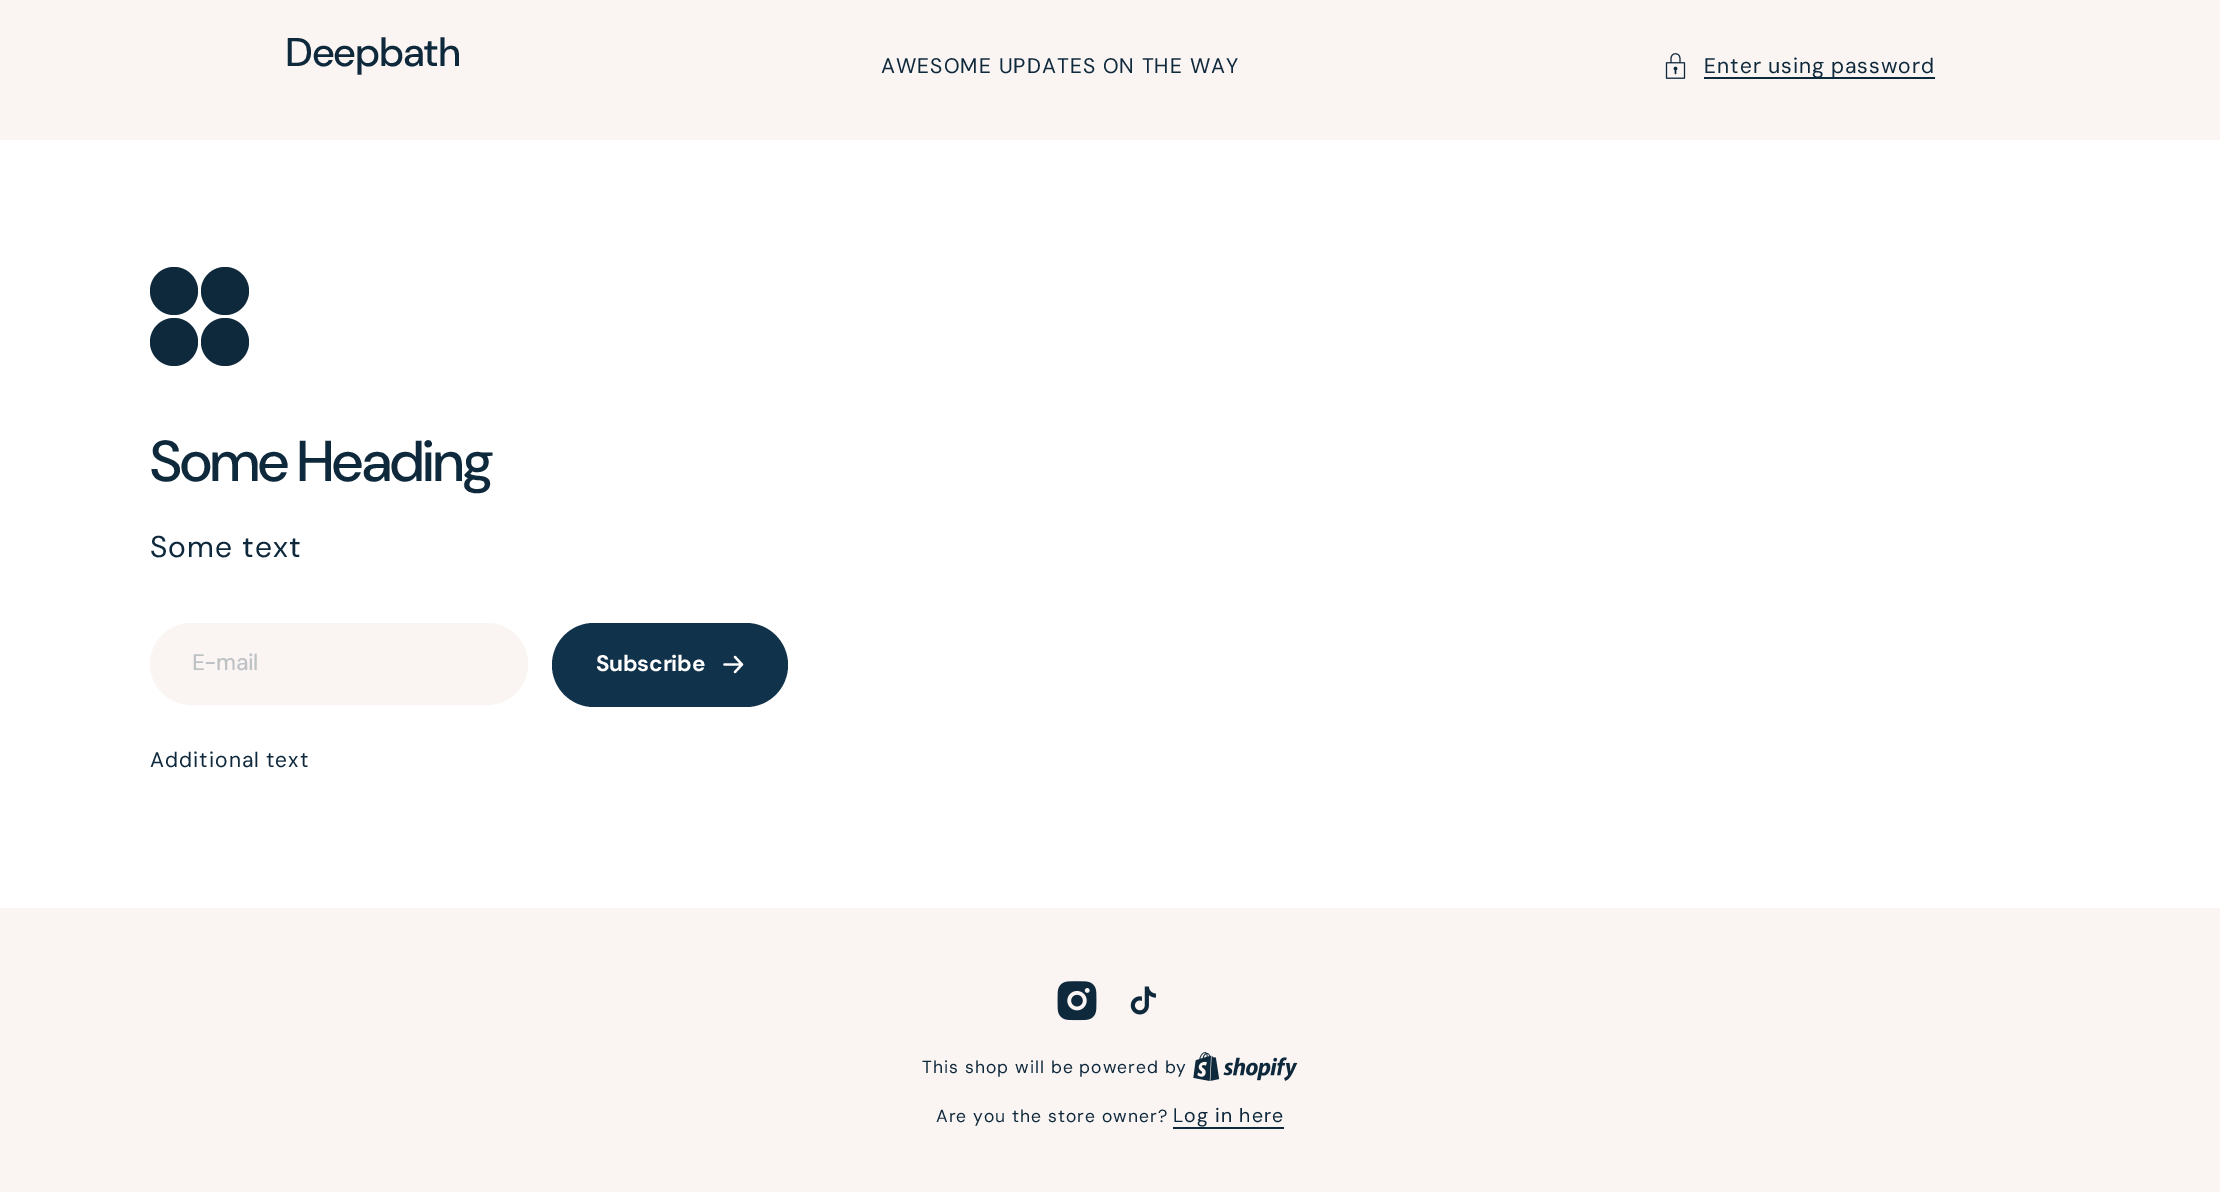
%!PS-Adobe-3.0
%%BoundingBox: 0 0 2220 1192
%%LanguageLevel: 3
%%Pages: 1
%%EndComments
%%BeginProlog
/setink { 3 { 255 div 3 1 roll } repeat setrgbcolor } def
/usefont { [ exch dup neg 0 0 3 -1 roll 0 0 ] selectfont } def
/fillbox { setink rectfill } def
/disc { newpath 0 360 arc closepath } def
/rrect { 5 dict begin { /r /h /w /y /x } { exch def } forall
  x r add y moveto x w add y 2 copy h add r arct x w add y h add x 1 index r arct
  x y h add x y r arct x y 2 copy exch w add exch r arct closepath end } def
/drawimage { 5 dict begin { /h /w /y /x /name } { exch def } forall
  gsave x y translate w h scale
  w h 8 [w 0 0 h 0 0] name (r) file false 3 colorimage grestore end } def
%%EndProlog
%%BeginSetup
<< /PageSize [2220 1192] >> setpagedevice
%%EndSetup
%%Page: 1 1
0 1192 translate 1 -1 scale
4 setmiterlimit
0 0 2220 1192 255 255 255 fillbox
0 0 2220 140 250 245 242 fillbox
/DMSans-Medium 40 usefont
14 40 60 setink
285 66 moveto -1.25 0 (Deepbath) ashow
/DMSans-Regular 21 usefont
881 73 moveto 1.05 0 (AWESOME UPDATES ON THE WAY) ashow
(assets/img1.rgb) 1665 53 21 26 drawimage
1704 77 231 2 14 40 60 fillbox
1704 73 moveto -1 0 32 1.05 0 (Enter using password) awidthshow
174 291 24 disc fill
225 291 24 disc fill
174 342 24 disc fill
225 342 24 disc fill
/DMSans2-Medium 57.5 usefont
150 481 moveto -1.75 0 (Some Heading) ashow
/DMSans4-Regular 30 usefont
150 557 moveto 1.05 0 (Some text) ashow
250 245 242 setink
151 624 376 80 40 rrect gsave fill grestore
2 setlinewidth
stroke
/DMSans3-Medium 22.5 usefont
191 194 197 setink
192 670 moveto -0.5 0 (E-mail) ashow
17 50 75 setink
552 623 236 84 42 rrect fill
/DMSans-Bold 22.5 usefont
255 255 255 setink
596 671 moveto -0.25 0 (Subscribe) ashow
2.2 setlinewidth
1 setlinecap
1 setlinejoin
735 657 moveto 742 664.5 lineto 742 664.5 moveto 735 672 lineto 742 664.5 moveto 724.5 664.5 lineto stroke
/DMSans-Regular 21 usefont
14 40 60 setink
150 767 moveto -1 0 32 1.05 0 (Additional text) awidthshow
0 908 2220 284 250 245 242 fillbox
(assets/img2.rgb) 1057 981 40 40 drawimage
(assets/img3.rgb) 1130 986 26 29 drawimage
/DMSans2-Regular 17.5 usefont
14 40 60 setink
922 1073 moveto 1.05 0 (This shop will be powered by) ashow
(assets/img4.rgb) 1193 1052 105 29 drawimage
936 1122 moveto 1.05 0 (Are you the store owner?) ashow
/DMSans3-Regular 19.5 usefont
1173 1122 moveto 1.05 0 (Log in here) ashow
1173 1127 111 2 14 40 60 fillbox
showpage
%%EOF
